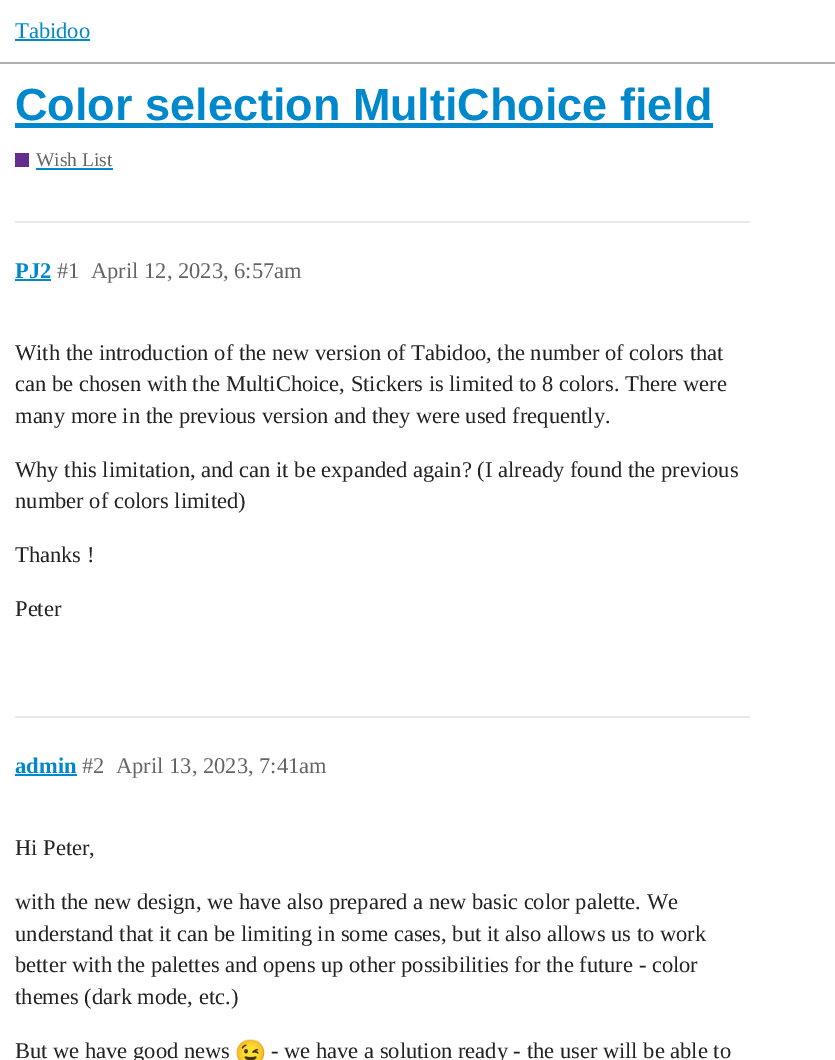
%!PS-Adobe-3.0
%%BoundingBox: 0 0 835 1060
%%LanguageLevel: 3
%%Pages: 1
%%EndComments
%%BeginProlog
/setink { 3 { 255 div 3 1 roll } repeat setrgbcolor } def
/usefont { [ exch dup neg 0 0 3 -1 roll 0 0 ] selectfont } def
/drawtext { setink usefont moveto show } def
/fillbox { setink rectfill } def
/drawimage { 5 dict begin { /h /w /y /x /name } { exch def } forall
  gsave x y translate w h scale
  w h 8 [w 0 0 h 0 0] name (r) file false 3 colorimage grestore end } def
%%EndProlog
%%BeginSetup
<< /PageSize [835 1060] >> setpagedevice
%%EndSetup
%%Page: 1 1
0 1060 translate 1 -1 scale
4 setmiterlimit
0 0 835 1060 255 255 255 fillbox
0 62 835 2 175 175 175 fillbox
(Tabidoo) 15 38 /LiberationSerif-Regular 22.5 0 136 204 drawtext
15 39 75 2 0 136 204 fillbox
(Color selection MultiChoice field) 15 120 /LiberationSans-Bold 45 0 136 204 drawtext
15 123 698 5 0 136 204 fillbox
15 153 14 14 101 45 144 fillbox
(Wish List) 36 166 /LiberationSerif-Regular 19.5 100 100 100 drawtext
36 168 77 2 0 136 204 fillbox
15 221 735 2 233 233 233 fillbox
(PJ2) 15 278 /LiberationSerif-Bold 22.5 0 136 204 drawtext
15 279 36 2 0 136 204 fillbox
(#1) 57 278 /LiberationSerif-Regular 22.5 100 100 100 drawtext
(April 12, 2023, 6:57am) 91 278 /LiberationSerif-Regular 22.5 100 100 100 drawtext
(With the introduction of the new version of Tabidoo, the number of colors that) 15 360 /LiberationSerif-Regular 22.5 34 34 34 drawtext
(can be chosen with the MultiChoice, Stickers is limited to 8 colors. There were) 15 391 /LiberationSerif-Regular 22.5 34 34 34 drawtext
(many more in the previous version and they were used frequently.) 15 423 /LiberationSerif-Regular 22.5 34 34 34 drawtext
(Why this limitation, and can it be expanded again? \(I already found the previous) 15 477 /LiberationSerif-Regular 22.5 34 34 34 drawtext
(number of colors limited\)) 15 508 /LiberationSerif-Regular 22.5 34 34 34 drawtext
(Thanks !) 15 562 /LiberationSerif-Regular 22.5 34 34 34 drawtext
(Peter) 15 616 /LiberationSerif-Regular 22.5 34 34 34 drawtext
15 716 735 2 233 233 233 fillbox
(admin) 15 773 /LiberationSerif-Bold 22.5 0 136 204 drawtext
15 774 62 2 0 136 204 fillbox
(#2) 82 773 /LiberationSerif-Regular 22.5 100 100 100 drawtext
(April 13, 2023, 7:41am) 116 773 /LiberationSerif-Regular 22.5 100 100 100 drawtext
(Hi Peter,) 15 855 /LiberationSerif-Regular 22.5 34 34 34 drawtext
(with the new design, we have also prepared a new basic color palette. We) 15 909 /LiberationSerif-Regular 22.5 34 34 34 drawtext
(understand that it can be limiting in some cases, but it also allows us to work) 15 941 /LiberationSerif-Regular 22.5 34 34 34 drawtext
(better with the palettes and opens up other possibilities for the future - color) 15 972 /LiberationSerif-Regular 22.5 34 34 34 drawtext
(themes \(dark mode, etc.\)) 15 1004 /LiberationSerif-Regular 22.5 34 34 34 drawtext
(But we have good news) 15 1058 /LiberationSerif-Regular 22.5 34 34 34 drawtext
(assets/img1.rgb) 236 1039 29 21 drawimage
(- we have a solution ready - the user will be able to) 271 1058 /LiberationSerif-Regular 22.5 34 34 34 drawtext
showpage
%%EOF
